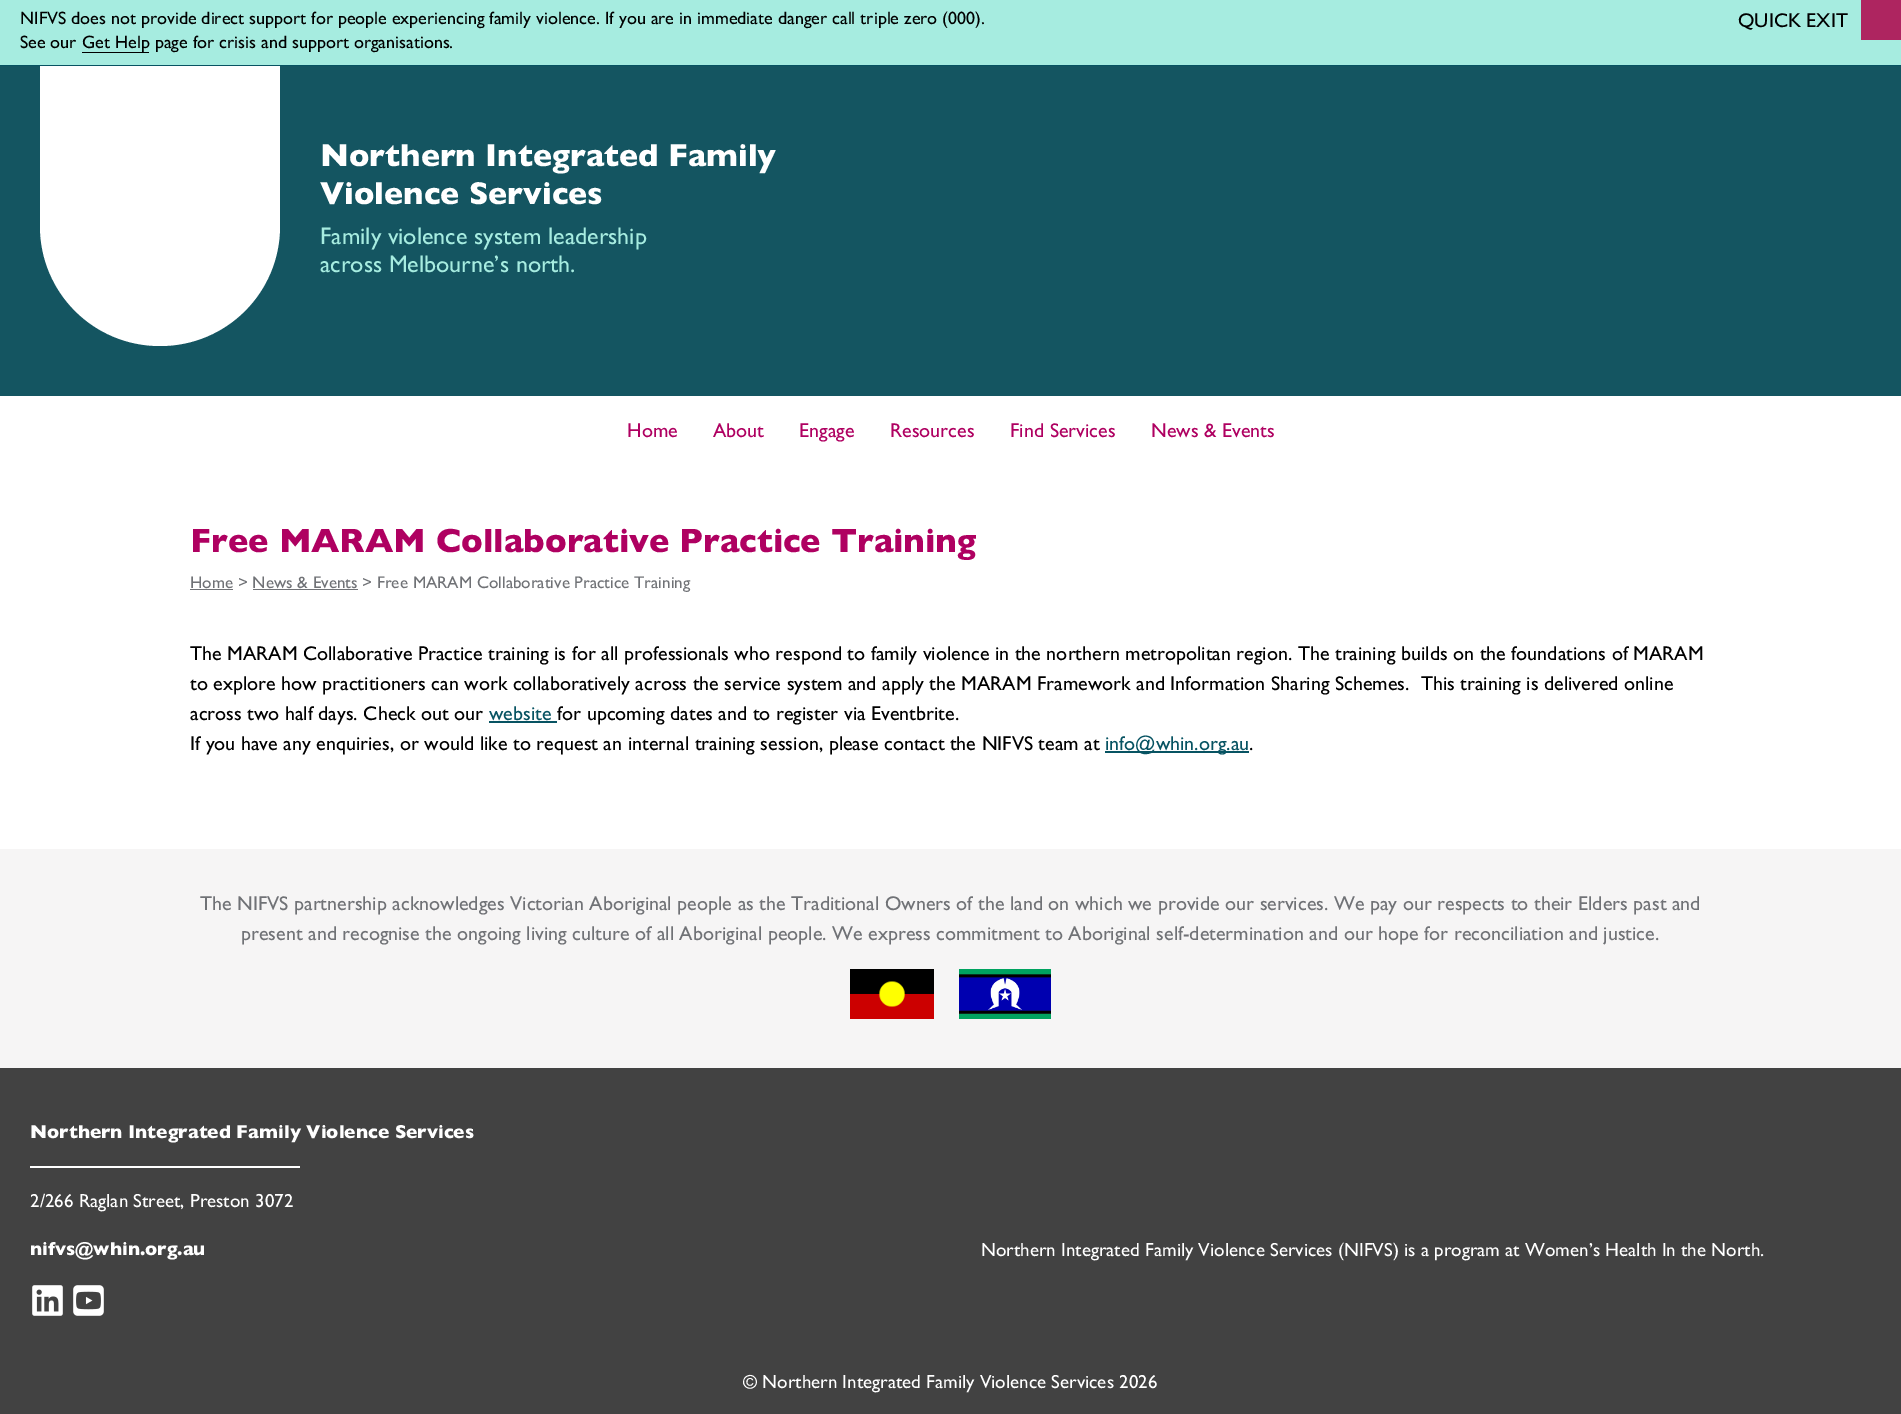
%!PS-Adobe-3.0
%%BoundingBox: 0 0 1901 1414
%%LanguageLevel: 3
%%Pages: 1
%%EndComments
%%BeginProlog
/setink { 3 { 255 div 3 1 roll } repeat setrgbcolor } def
/usefont { [ exch dup neg 0 0 3 -1 roll 0 0 ] selectfont } def
/drawtext { setink usefont moveto show } def
/fillbox { setink rectfill } def
/drawimage { 5 dict begin { /h /w /y /x /name } { exch def } forall
  gsave x y translate w h scale
  w h 8 [w 0 0 h 0 0] name (r) file false 3 colorimage grestore end } def
%%EndProlog
%%BeginSetup
<< /PageSize [1901 1414] >> setpagedevice
%%EndSetup
%%Page: 1 1
0 1414 translate 1 -1 scale
4 setmiterlimit
0 0 1901 1414 255 255 255 fillbox
0 0 1901 65 166 236 224 fillbox
0 65 1901 1 7 83 98 fillbox
(NIFVS does not provide direct support for people experiencing family violence. If you are in immediate danger call triple zero \(000\).) 20 24 /GillSans-Regular 18 0 0 0 drawtext
(See our) 20 48 /GillSans-Regular 18 0 0 0 drawtext
82 52 67 1 0 0 0 fillbox
(Get Help page for crisis and support organisations.) 82 48 /GillSans-Regular 18 0 0 0 drawtext
(QUICK EXIT) 1738 27 /GillSans-Regular 20 0 0 0 drawtext
1861 0 40 40 174 37 96 fillbox
0 66 1901 330 20 85 97 fillbox
255 255 255 setink
40 66 moveto 280 66 lineto 280 226 lineto 280 292.5 226.5 346 160 346 curveto 93.5 346 40 292.5 40 226 curveto closepath fill
(Northern Integrated Family) 320 166 /GillSans-Bold 32 255 255 255 drawtext
(Violence Services) 320 204 /GillSans-Bold 32 255 255 255 drawtext
(Family violence system leadership) 320 244 /GillSans-Regular 24 166 236 224 drawtext
(across Melbourne’s north.) 320 272 /GillSans-Regular 24 166 236 224 drawtext
(Home) 627 437 /GillSans-Regular 20 175 0 97 drawtext
(About) 713 437 /GillSans-Regular 20 175 0 97 drawtext
(Engage) 799 437 /GillSans-Regular 20 175 0 97 drawtext
(Resources) 890 437 /GillSans-Regular 20 175 0 97 drawtext
(Find Services) 1010 437 /GillSans-Regular 20 175 0 97 drawtext
(News & Events) 1151 437 /GillSans-Regular 20 175 0 97 drawtext
(Free MARAM Collaborative Practice Training) 190 552 /GillSans-Bold 34 175 0 97 drawtext
190 589 43 1 112 114 118 fillbox
(Home > News & Events > Free MARAM Collaborative Practice Training) 190 588 /GillSans-Regular 17 112 114 118 drawtext
253 589 105 1 112 114 118 fillbox
(The MARAM Collaborative Practice training is for all professionals who respond to family violence in the northern metropolitan region. The training builds on the foundations of MARAM) 190 660 /GillSans-Regular 20 0 0 0 drawtext
(to explore how practitioners can work collaboratively across the service system and apply the MARAM Framework and Information Sharing Schemes.  This training is delivered online) 190 690 /GillSans-Regular 20 0 0 0 drawtext
(across two half days. Check out our) 190 720 /GillSans-Regular 20 0 0 0 drawtext
(website) 489 720 /GillSans-Regular 20 7 83 98 drawtext
489 721 68 2 7 83 98 fillbox
(for upcoming dates and to register via Eventbrite.) 557 720 /GillSans-Regular 20 0 0 0 drawtext
(If you have any enquiries, or would like to request an internal training session, please contact the NIFVS team at) 190 750 /GillSans-Regular 20 0 0 0 drawtext
1105 751 144 2 7 83 98 fillbox
(info@whin.org.au) 1105 750 /GillSans-Regular 20 7 83 98 drawtext
(.) 1249 750 /GillSans-Regular 20 0 0 0 drawtext
0 849 1901 219 246 245 245 fillbox
(The NIFVS partnership acknowledges Victorian Aboriginal people as the Traditional Owners of the land on which we provide our services. We pay our respects to their Elders past and) 200 910 /GillSans-Regular 20 112 114 118 drawtext
(present and recognise the ongoing living culture of all Aboriginal people. We express commitment to Aboriginal self-determination and our hope for reconciliation and justice.) 241 940 /GillSans-Regular 20 112 114 118 drawtext
(assets/img1.rgb) 850 969 84 50 drawimage
(assets/img2.rgb) 959 969 92 50 drawimage
0 1068 1901 346 66 66 66 fillbox
(Northern Integrated Family Violence Services) 30 1138 /GillSans-Bold 19 255 255 255 drawtext
30 1166 270 2 255 255 255 fillbox
(2/266 Raglan Street, Preston 3072) 30 1207 /GillSans-Regular 19 255 255 255 drawtext
(nifvs@whin.org.au) 30 1255 /GillSans-Bold 19 255 255 255 drawtext
(assets/img3.rgb) 32 1285 31 31 drawimage
(assets/img4.rgb) 73 1285 31 31 drawimage
(Northern Integrated Family Violence Services \(NIFVS\) is a program at Women’s Health In the North.) 981 1256 /GillSans-Regular 19 255 255 255 drawtext
(© Northern Integrated Family Violence Services 2026) 743 1388 /GillSans-Regular 19 255 255 255 drawtext
showpage
%%EOF
